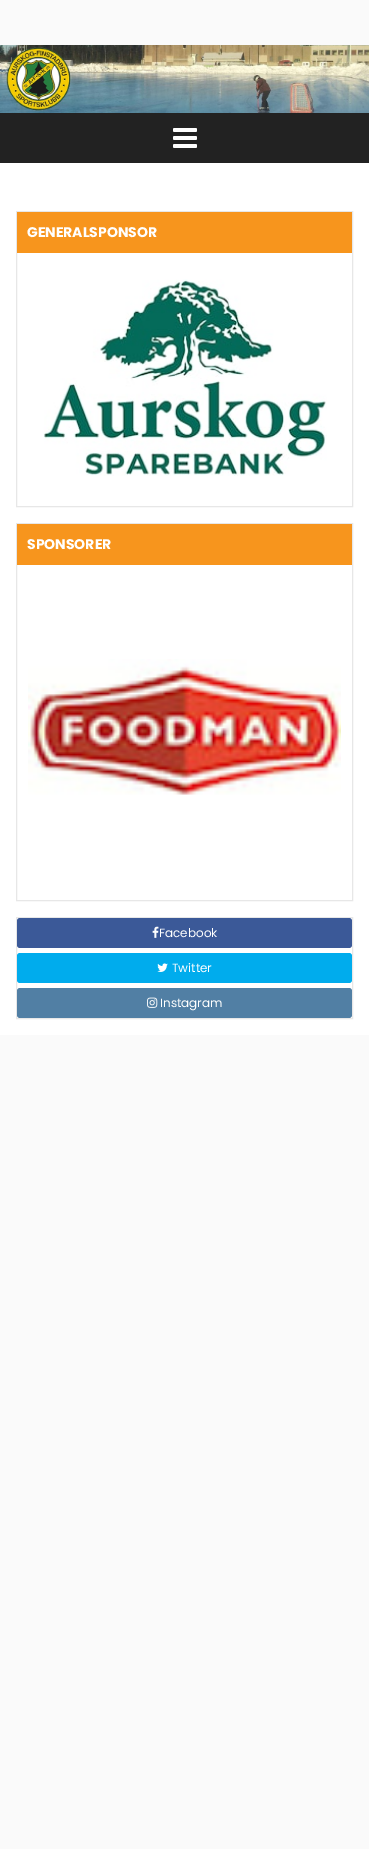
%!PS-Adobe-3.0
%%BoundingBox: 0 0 369 1849
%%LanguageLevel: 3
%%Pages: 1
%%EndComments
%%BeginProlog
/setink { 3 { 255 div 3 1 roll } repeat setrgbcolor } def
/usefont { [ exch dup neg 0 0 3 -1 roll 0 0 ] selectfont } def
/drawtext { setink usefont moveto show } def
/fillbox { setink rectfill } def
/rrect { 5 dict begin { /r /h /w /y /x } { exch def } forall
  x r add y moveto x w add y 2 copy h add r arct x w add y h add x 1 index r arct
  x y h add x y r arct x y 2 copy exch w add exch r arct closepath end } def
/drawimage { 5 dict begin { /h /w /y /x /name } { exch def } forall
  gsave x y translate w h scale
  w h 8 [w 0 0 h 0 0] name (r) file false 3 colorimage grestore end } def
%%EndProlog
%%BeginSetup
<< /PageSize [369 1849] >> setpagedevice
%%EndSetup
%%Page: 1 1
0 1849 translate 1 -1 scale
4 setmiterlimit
0 0 369 1849 250 250 250 fillbox
(assets/img1.rgb) 0 45 369 68 drawimage
0 113 369 50 34 34 34 fillbox
(assets/img2.rgb) 173 128 24 20 drawimage
0 163 369 872 255 255 255 fillbox
231 231 231 setink
16.5 211.5 336 295 rectstroke
17 212 335 41 247 149 29 fillbox
(GENERALSPONSOR) 27 237 /Poppins-Bold 14 255 255 255 drawtext
(assets/img3.rgb) 43 279 284 197 drawimage
231 231 231 setink
16.5 523.5 336 377 rectstroke
17 524 335 41 247 149 29 fillbox
(SPONSORER) 27 549 /Poppins-Bold 14 255 255 255 drawtext
(assets/img4.rgb) 28 659 313 136 drawimage
231 231 231 setink
16.5 917.5 336 101 rectstroke
59 89 152 setink
17 918 335 30 3 rrect fill
(assets/img5.rgb) 152 926 7 12 drawimage
(Facebook) 159 937 /Poppins-Regular 12 255 255 255 drawtext
0 172 237 setink
17 953 335 30 3 rrect fill
(assets/img6.rgb) 157 963 11 9 drawimage
(Twitter) 172 972 /Poppins-Regular 12 255 255 255 drawtext
81 127 164 setink
17 988 335 30 3 rrect fill
(assets/img7.rgb) 147 997 11 11 drawimage
(Instagram) 160 1007 /Poppins-Regular 12 255 255 255 drawtext
showpage
%%EOF
